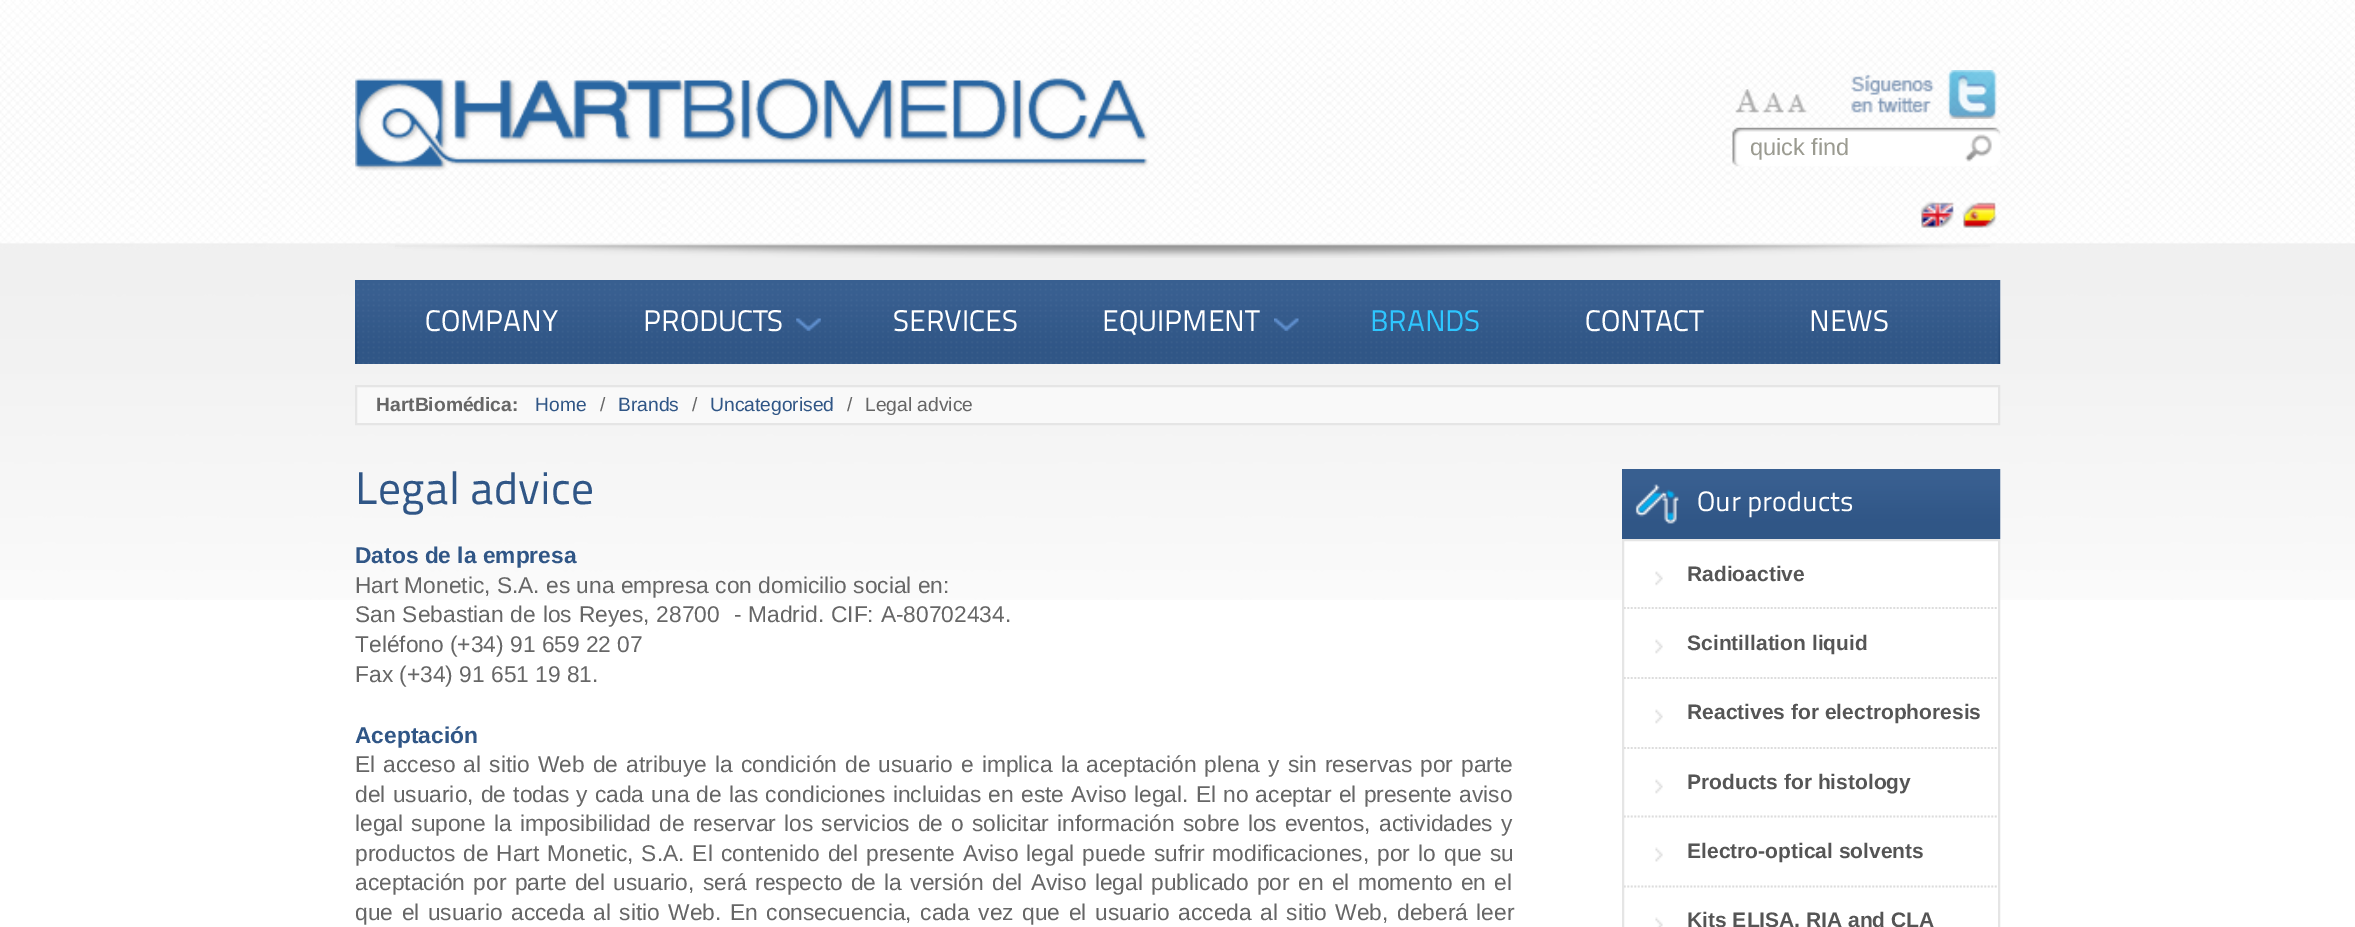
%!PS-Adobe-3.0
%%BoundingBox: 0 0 2355 927
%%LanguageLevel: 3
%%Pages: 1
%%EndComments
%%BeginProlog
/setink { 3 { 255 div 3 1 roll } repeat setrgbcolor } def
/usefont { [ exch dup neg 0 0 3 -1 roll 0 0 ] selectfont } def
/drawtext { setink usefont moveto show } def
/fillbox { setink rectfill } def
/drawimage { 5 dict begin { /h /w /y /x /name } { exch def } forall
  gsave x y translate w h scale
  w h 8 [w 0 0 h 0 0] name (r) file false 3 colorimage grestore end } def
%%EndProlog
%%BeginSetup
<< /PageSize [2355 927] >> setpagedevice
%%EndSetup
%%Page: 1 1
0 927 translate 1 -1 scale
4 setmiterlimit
0 0 2355 927 255 255 255 fillbox
(assets/img1.rgb) 0 0 2355 600 drawimage
(assets/img2.rgb) 395 244 1595 14 drawimage
(assets/img3.rgb) 355 72 794 99 drawimage
(assets/img4.rgb) 1735 89 25 24 drawimage
(assets/img5.rgb) 1762 92 22 21 drawimage
(assets/img6.rgb) 1786 94 21 19 drawimage
(assets/img7.rgb) 1851 70 146 49 drawimage
1733 128 267 38 255 255 255 fillbox
(assets/img8.rgb) 1732 127 269 40 drawimage
(quick find) 1750 155 /LiberationSans-Regular 23.5 155 155 145 drawtext
(assets/img9.rgb) 1920 201 34 27 drawimage
(assets/img10.rgb) 1962 202 35 26 drawimage
(assets/img11.rgb) 355 280 1646 84 drawimage
(COMPANY) 425 331 /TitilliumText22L-Regular 29.75 255 255 255 drawtext
(assets/img12.rgb) 796 318 25 13 drawimage
(PRODUCTS) 643 331 /TitilliumText22L-Regular 29.75 255 255 255 drawtext
(SERVICES) 893 331 /TitilliumText22L-Regular 29.75 255 255 255 drawtext
(assets/img13.rgb) 1274 318 25 13 drawimage
(EQUIPMENT) 1102 331 /TitilliumText22L-Regular 29.75 255 255 255 drawtext
(BRANDS) 1370 331 /TitilliumText22L-Regular 29.75 46 198 255 drawtext
(CONTACT) 1585 331 /TitilliumText22L-Regular 29.75 255 255 255 drawtext
(NEWS) 1809 331 /TitilliumText22L-Regular 29.75 255 255 255 drawtext
249 249 249 setink
356 386 moveto 1999 386 lineto 1999 424 lineto 356 424 lineto closepath gsave fill grestore
229 229 229 setink
2 setlinewidth
stroke
(HartBiomédica:) 376 411 /LiberationSans-Bold 19.25 102 102 102 drawtext
(Home) 535 411 /LiberationSans-Regular 19.25 48 86 134 drawtext
(/) 600 411 /LiberationSans-Regular 19.25 102 102 102 drawtext
(Brands) 618 411 /LiberationSans-Regular 19.25 48 86 134 drawtext
(/) 692 411 /LiberationSans-Regular 19.25 102 102 102 drawtext
(Uncategorised) 710 411 /LiberationSans-Regular 19.25 48 86 134 drawtext
(/) 847 411 /LiberationSans-Regular 19.25 102 102 102 drawtext
(Legal advice) 865 411 /LiberationSans-Regular 19.25 102 102 102 drawtext
(Legal advice) 355 504 /TitilliumText22L-Regular 45.5 48 86 134 drawtext
(Datos de la empresa) 355 563 /LiberationSans-Bold 22.75 48 86 134 drawtext
(Hart Monetic, S.A. es una empresa con domicilio social en:) 355 593 /LiberationSans-Regular 22.75 102 102 102 drawtext
355 622 moveto 0.6 0 32 (San Sebastian de los Reyes, 28700  - Madrid. CIF: A-80702434.) widthshow
(Teléfono \(+34\) 91 659 22 07) 355 652 /LiberationSans-Regular 22.75 102 102 102 drawtext
(Fax \(+34\) 91 651 19 81.) 355 682 /LiberationSans-Regular 22.75 102 102 102 drawtext
(Aceptación) 355 743 /LiberationSans-Bold 22.75 48 86 134 drawtext
/LiberationSans-Regular 22.75 usefont
102 102 102 setink
355 772 moveto 1.75 0 32 (El acceso al sitio Web de atribuye la condición de usuario e implica la aceptación plena y sin reservas por parte) widthshow
355 802 moveto 0.9 0 32 (del usuario, de todas y cada una de las condiciones incluidas en este Aviso legal. El no aceptar el presente aviso) widthshow
355 831 moveto 1.75 0 32 (legal supone la imposibilidad de reservar los servicios de o solicitar información sobre los eventos, actividades y) widthshow
355 861 moveto 1.75 0 32 (productos de Hart Monetic, S.A. El contenido del presente Aviso legal puede sufrir modificaciones, por lo que su) widthshow
355 890 moveto 2 0 32 (aceptación por parte del usuario, será respecto de la versión del Aviso legal publicado por en el momento en el) widthshow
355 920 moveto 2.25 0 32 (que el usuario acceda al sitio Web. En consecuencia, cada vez que el usuario acceda al sitio Web, deberá leer) widthshow
(assets/img14.rgb) 1622 469 379 70 drawimage
(Our products) 1697 511 /TitilliumText22L-Regular 28 255 255 255 drawtext
1624 541 374 59 255 255 255 fillbox
229 229 229 setink
1623 540 376 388 rectstroke
(assets/img15.rgb) 1655 571 8 15 drawimage
(Radioactive) 1687 581 /LiberationSans-Bold 21 85 85 85 drawtext
(assets/img16.rgb) 1655 639 8 15 drawimage
221 221 221 setink
1.8 setlinewidth
[1.75 1.75] 0 setdash
1624 608 moveto 1998.5 608 lineto stroke
(Scintillation liquid) 1687 650 /LiberationSans-Bold 21 85 85 85 drawtext
(assets/img16.rgb) 1655 709 8 15 drawimage
221 221 221 setink
1624 678 moveto 1998.5 678 lineto stroke
(Reactives for electrophoresis) 1687 719 /LiberationSans-Bold 21 85 85 85 drawtext
(assets/img16.rgb) 1655 779 8 15 drawimage
221 221 221 setink
1624 748 moveto 1998.5 748 lineto stroke
(Products for histology) 1687 789 /LiberationSans-Bold 21 85 85 85 drawtext
(assets/img17.rgb) 1655 847 8 15 drawimage
221 221 221 setink
1624 816.5 moveto 1998.5 816.5 lineto stroke
(Electro-optical solvents) 1687 858 /LiberationSans-Bold 21 85 85 85 drawtext
(assets/img18.rgb) 1655 917 8 10 drawimage
221 221 221 setink
1624 886.5 moveto 1998.5 886.5 lineto stroke
(Kits ELISA, RIA and CLA) 1687 927 /LiberationSans-Bold 21 85 85 85 drawtext
showpage
%%EOF
